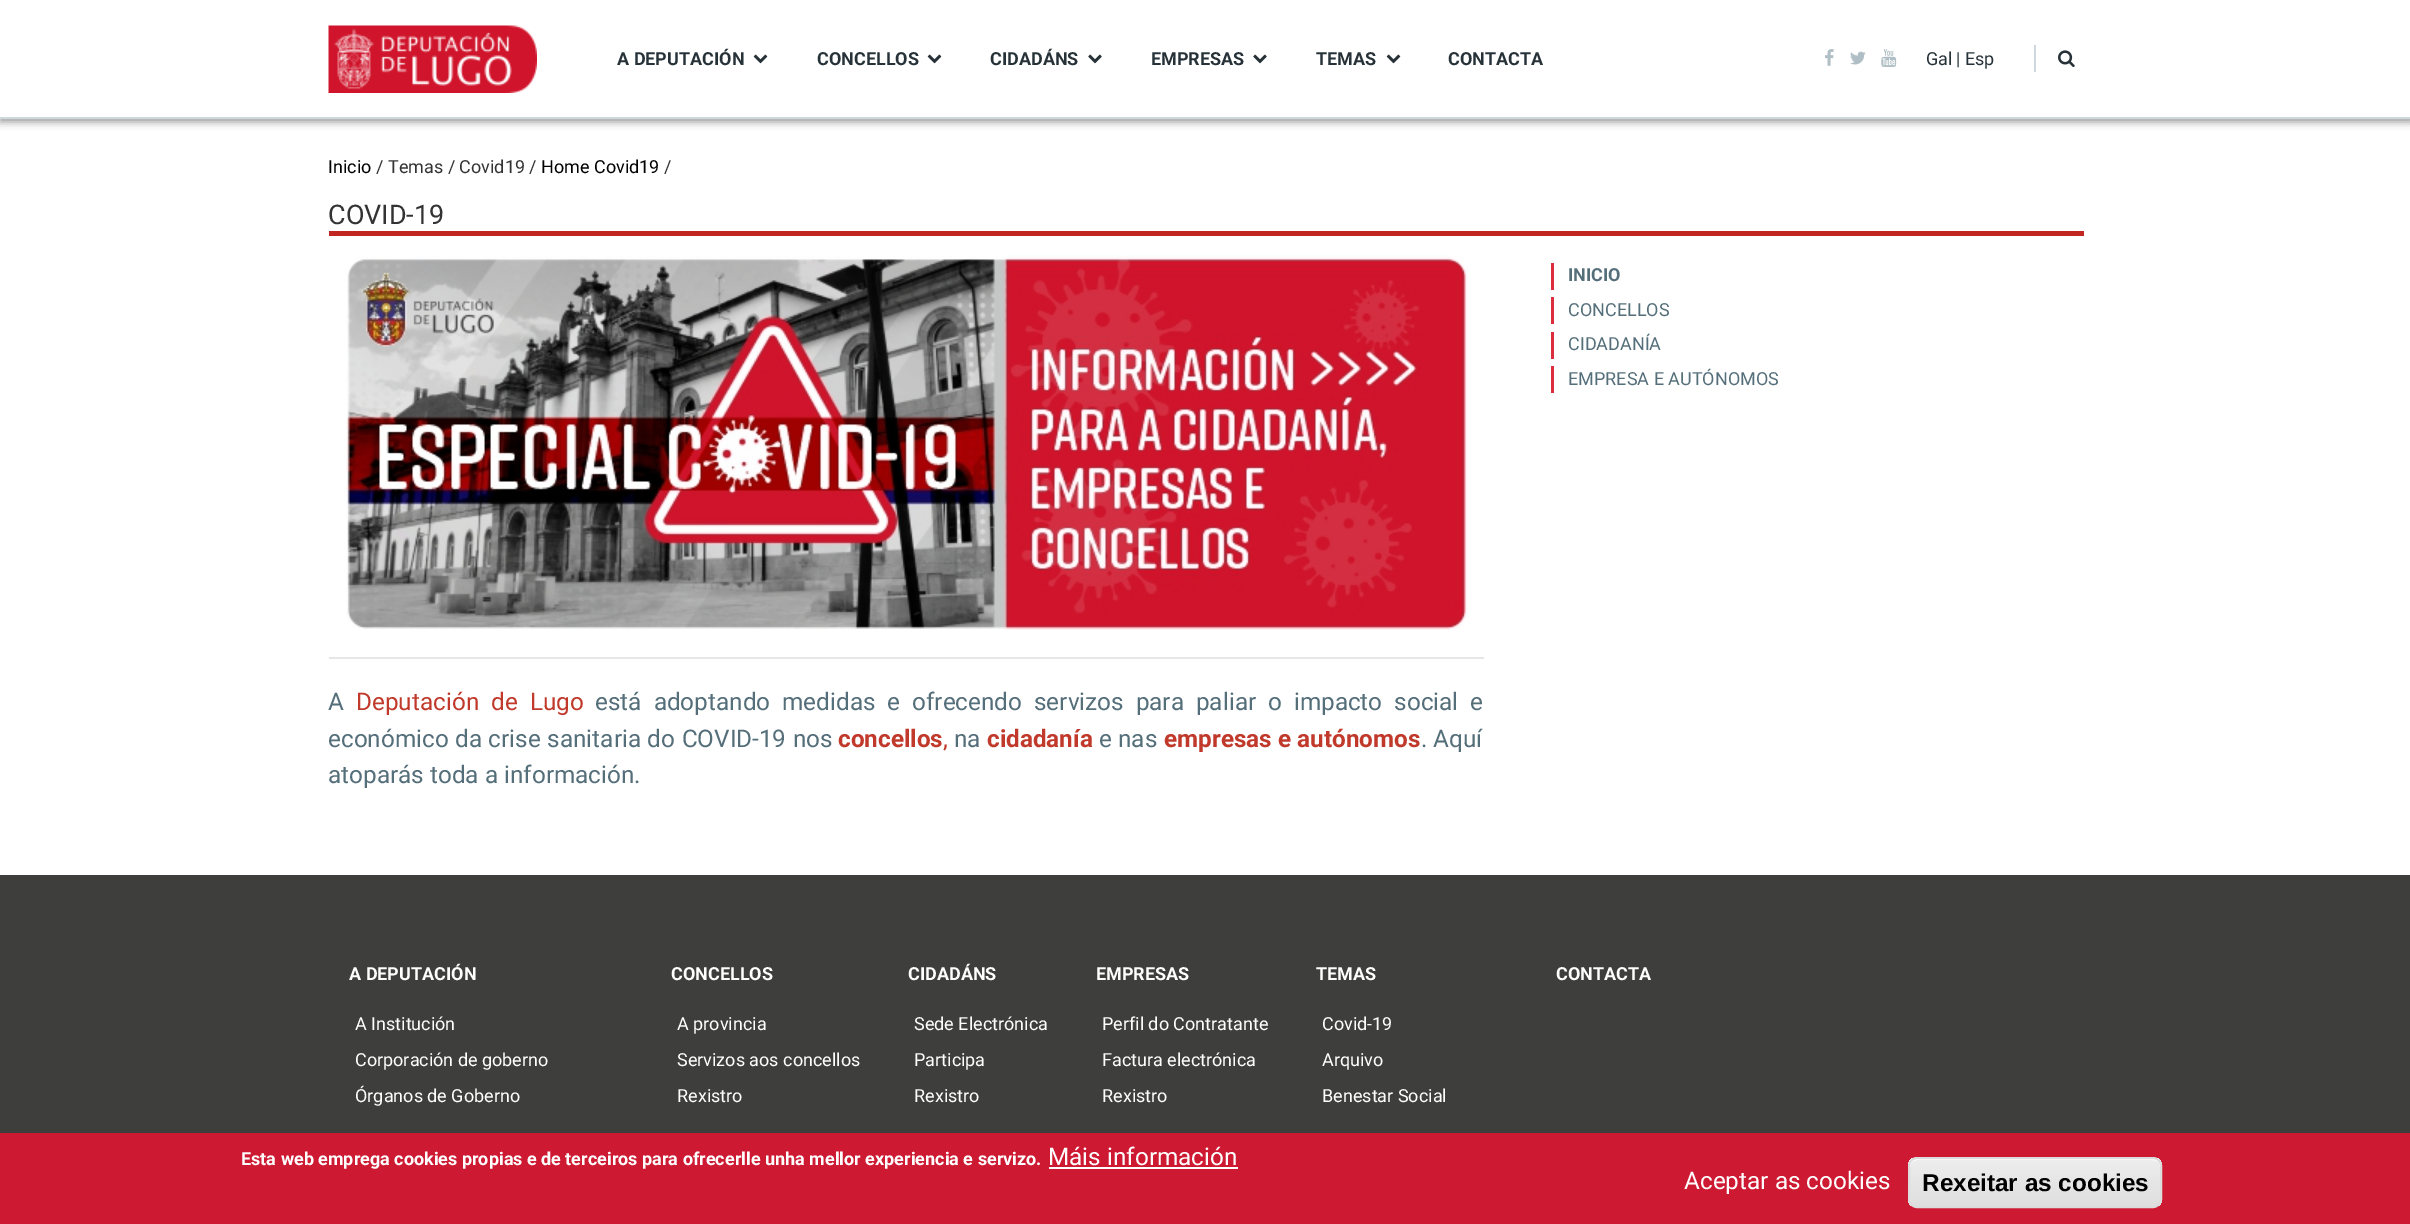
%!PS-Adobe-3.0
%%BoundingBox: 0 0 2410 1224
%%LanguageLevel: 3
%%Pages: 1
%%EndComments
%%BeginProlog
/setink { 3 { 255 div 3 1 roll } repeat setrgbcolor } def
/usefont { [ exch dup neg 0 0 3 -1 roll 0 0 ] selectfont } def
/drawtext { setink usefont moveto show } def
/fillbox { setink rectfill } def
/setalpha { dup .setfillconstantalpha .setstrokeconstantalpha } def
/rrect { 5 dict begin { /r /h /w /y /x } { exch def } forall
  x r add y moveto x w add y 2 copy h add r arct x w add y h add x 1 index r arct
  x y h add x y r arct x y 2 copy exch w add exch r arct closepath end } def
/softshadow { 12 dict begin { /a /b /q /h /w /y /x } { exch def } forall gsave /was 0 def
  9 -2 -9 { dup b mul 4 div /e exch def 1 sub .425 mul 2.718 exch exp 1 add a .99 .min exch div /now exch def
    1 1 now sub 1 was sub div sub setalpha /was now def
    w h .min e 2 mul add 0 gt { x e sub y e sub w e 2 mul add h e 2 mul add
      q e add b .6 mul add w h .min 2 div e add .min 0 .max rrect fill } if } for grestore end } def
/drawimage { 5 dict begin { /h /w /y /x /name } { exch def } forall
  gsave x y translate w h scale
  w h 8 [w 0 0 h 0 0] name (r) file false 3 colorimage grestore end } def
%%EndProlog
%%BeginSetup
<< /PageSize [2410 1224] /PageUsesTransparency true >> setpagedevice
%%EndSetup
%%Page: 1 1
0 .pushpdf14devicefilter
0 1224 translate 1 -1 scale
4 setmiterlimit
0 0 2410 1224 255 255 255 fillbox
0 0 0 setink
0 3 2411 119 0 4 0.4 softshadow
0 0 2410 117 255 255 255 fillbox
0 117 2410 2 207 216 220 fillbox
(assets/img1.rgb) 328 25 209 68 drawimage
(A DEPUTACIÓN) 617 65 /Roboto-Bold 18 38 50 56 drawtext
(assets/img2.rgb) 753 54 15 10 drawimage
(CONCELLOS) 817 65 /Roboto-Bold 18 38 50 56 drawtext
(assets/img2.rgb) 927 54 15 10 drawimage
(CIDADÁNS) 990 65 /Roboto-Bold 18 38 50 56 drawtext
(assets/img3.rgb) 1088 54 14 10 drawimage
(EMPRESAS) 1151 65 /Roboto-Bold 18 38 50 56 drawtext
(assets/img3.rgb) 1253 54 14 10 drawimage
(TEMAS) 1316 65 /Roboto-Bold 18 38 50 56 drawtext
(assets/img2.rgb) 1386 54 15 10 drawimage
(CONTACTA) 1448 65 /Roboto-Bold 18 38 50 56 drawtext
(assets/img4.rgb) 1825 49 9 17 drawimage
(assets/img5.rgb) 1850 51 16 14 drawimage
(assets/img6.rgb) 1881 49 16 19 drawimage
(Gal) 1926 65 /Roboto-Regular 18 38 50 56 drawtext
(| Esp) 1956 65 /Roboto-Regular 18 38 50 56 drawtext
2034 45 2 27 207 216 220 fillbox
(assets/img7.rgb) 2058 50 17 18 drawimage
(Inicio) 328 173 /Roboto-Regular 18 0 0 0 drawtext
(/ Temas / Covid19 /) 376 173 /Roboto-Regular 18 51 51 51 drawtext
(Home Covid19) 541 173 /Roboto-Regular 18 0 0 0 drawtext
(/) 664 173 /Roboto-Regular 18 51 51 51 drawtext
329 231 1755 5 194 38 32 fillbox
(COVID-19) 328 224 /Roboto-Regular 27 51 51 51 drawtext
1551 263 3 27 220 45 60 fillbox
(INICIO) 1568 281 /Roboto-Bold 18 84 110 122 drawtext
1551 297 3 27 220 45 60 fillbox
(CONCELLOS) 1568 316 /Roboto-Regular 18 84 110 122 drawtext
1551 332 3 27 220 45 60 fillbox
(CIDADANÍA) 1568 350 /Roboto-Regular 18 84 110 122 drawtext
1551 366 3 27 220 45 60 fillbox
(EMPRESA E AUTÓNOMOS) 1568 385 /Roboto-Regular 18 84 110 122 drawtext
(assets/img8.rgb) 346 255 1123 375 drawimage
329 657 1155 2 230 230 230 fillbox
(A) 328 710 /Roboto-Regular 24.3 84 110 122 drawtext
192 57 43 setink
356 710 moveto 6 0 32 (Deputación de Lugo) widthshow
84 110 122 setink
595 710 moveto 5.9 0 32 (está adoptando medidas e ofrecendo servizos para paliar o impacto social e) widthshow
328 747 moveto 0.5 0 32 (económico da crise sanitaria do COVID-19 nos) widthshow
(concellos) 838 747 /Roboto-Bold 24.3 192 57 43 drawtext
(,) 943 747 /Roboto-Regular 24.3 192 57 43 drawtext
(na) 954 747 /Roboto-Regular 24.3 84 110 122 drawtext
(cidadanía) 987 747 /Roboto-Bold 24.3 192 57 43 drawtext
(e nas) 1099 747 /Roboto-Regular 24.3 84 110 122 drawtext
(empresas e autónomos) 1164 747 /Roboto-Bold 24.3 192 57 43 drawtext
(. Aquí) 1421 747 /Roboto-Regular 24.3 84 110 122 drawtext
(atoparás toda a información.) 328 783 /Roboto-Regular 24.3 84 110 122 drawtext
0 875 2410 258 62 62 60 fillbox
(A DEPUTACIÓN) 349 980 /Roboto-Bold 18 255 255 255 drawtext
(A Institución) 355 1030 /Roboto-Regular 18 255 255 255 drawtext
(Corporación de goberno) 355 1066 /Roboto-Regular 18 255 255 255 drawtext
(Órganos de Goberno) 355 1102 /Roboto-Regular 18 255 255 255 drawtext
(CONCELLOS) 671 980 /Roboto-Bold 18 255 255 255 drawtext
(A provincia) 677 1030 /Roboto-Regular 18 255 255 255 drawtext
(Servizos aos concellos) 677 1066 /Roboto-Regular 18 255 255 255 drawtext
(Rexistro) 677 1102 /Roboto-Regular 18 255 255 255 drawtext
(CIDADÁNS) 908 980 /Roboto-Bold 18 255 255 255 drawtext
(Sede Electrónica) 914 1030 /Roboto-Regular 18 255 255 255 drawtext
(Participa) 914 1066 /Roboto-Regular 18 255 255 255 drawtext
(Rexistro) 914 1102 /Roboto-Regular 18 255 255 255 drawtext
(EMPRESAS) 1096 980 /Roboto-Bold 18 255 255 255 drawtext
(Perfil do Contratante) 1102 1030 /Roboto-Regular 18 255 255 255 drawtext
(Factura electrónica) 1102 1066 /Roboto-Regular 18 255 255 255 drawtext
(Rexistro) 1102 1102 /Roboto-Regular 18 255 255 255 drawtext
(TEMAS) 1316 980 /Roboto-Bold 18 255 255 255 drawtext
(Covid-19) 1322 1030 /Roboto-Regular 18 255 255 255 drawtext
(Arquivo) 1322 1066 /Roboto-Regular 18 255 255 255 drawtext
(Benestar Social) 1322 1102 /Roboto-Regular 18 255 255 255 drawtext
(CONTACTA) 1556 980 /Roboto-Bold 18 255 255 255 drawtext
0 1133 2410 91 206 25 50 fillbox
(Esta web emprega cookies propias e de terceiros para ofrecerlle unha mellor experiencia e servizo.) 241 1165 /Roboto-Bold 18 255 255 255 drawtext
(Máis información) 1048 1165 /Roboto-Regular 24.3 255 255 255 drawtext
1049 1167 189 2 255 255 255 fillbox
(Aceptar as cookies) 1684 1189 /Roboto-Regular 24.3 255 255 255 drawtext
gsave
1908 1157 254 51 9 rrect clip newpath
gsave 1908 1158 moveto 2162 1158 lineto 2162 1206 lineto 1908 1206 lineto closepath clip newpath
<< /ShadingType 2 /ColorSpace /DeviceRGB /Coords [2035 1158 2035 1206] /Extend [true true] /Function << /FunctionType 3 /Domain [0 1] /Functions [<< /FunctionType 2 /Domain [0 1] /C0 [0.929 0.929 0.929] /C1 [0.929 0.929 0.929] /N 1 >> << /FunctionType 2 /Domain [0 1] /C0 [0.929 0.929 0.929] /C1 [0.875 0.875 0.875] /N 1 >>] /Bounds [0.05] /Encode [0 1 0 1] >> >> shfill grestore
grestore
1917 1160 moveto 2152 1160 lineto 2157 1160 2160 1163 2160 1167 curveto 2160 1162 2157 1158 2152 1158 curveto 1916 1158 lineto 1912 1159 1910 1163 1910 1167 curveto 1910 1163 1913 1160 1917 1160 curveto closepath fill
220 220 220 setink
2 setlinewidth
1909 1158 252 49 8 rrect stroke
(Rexeitar as cookies) 1922 1191 /LiberationSans-Bold 24.3 0 0 0 drawtext
.poppdf14devicefilter showpage
%%EOF
